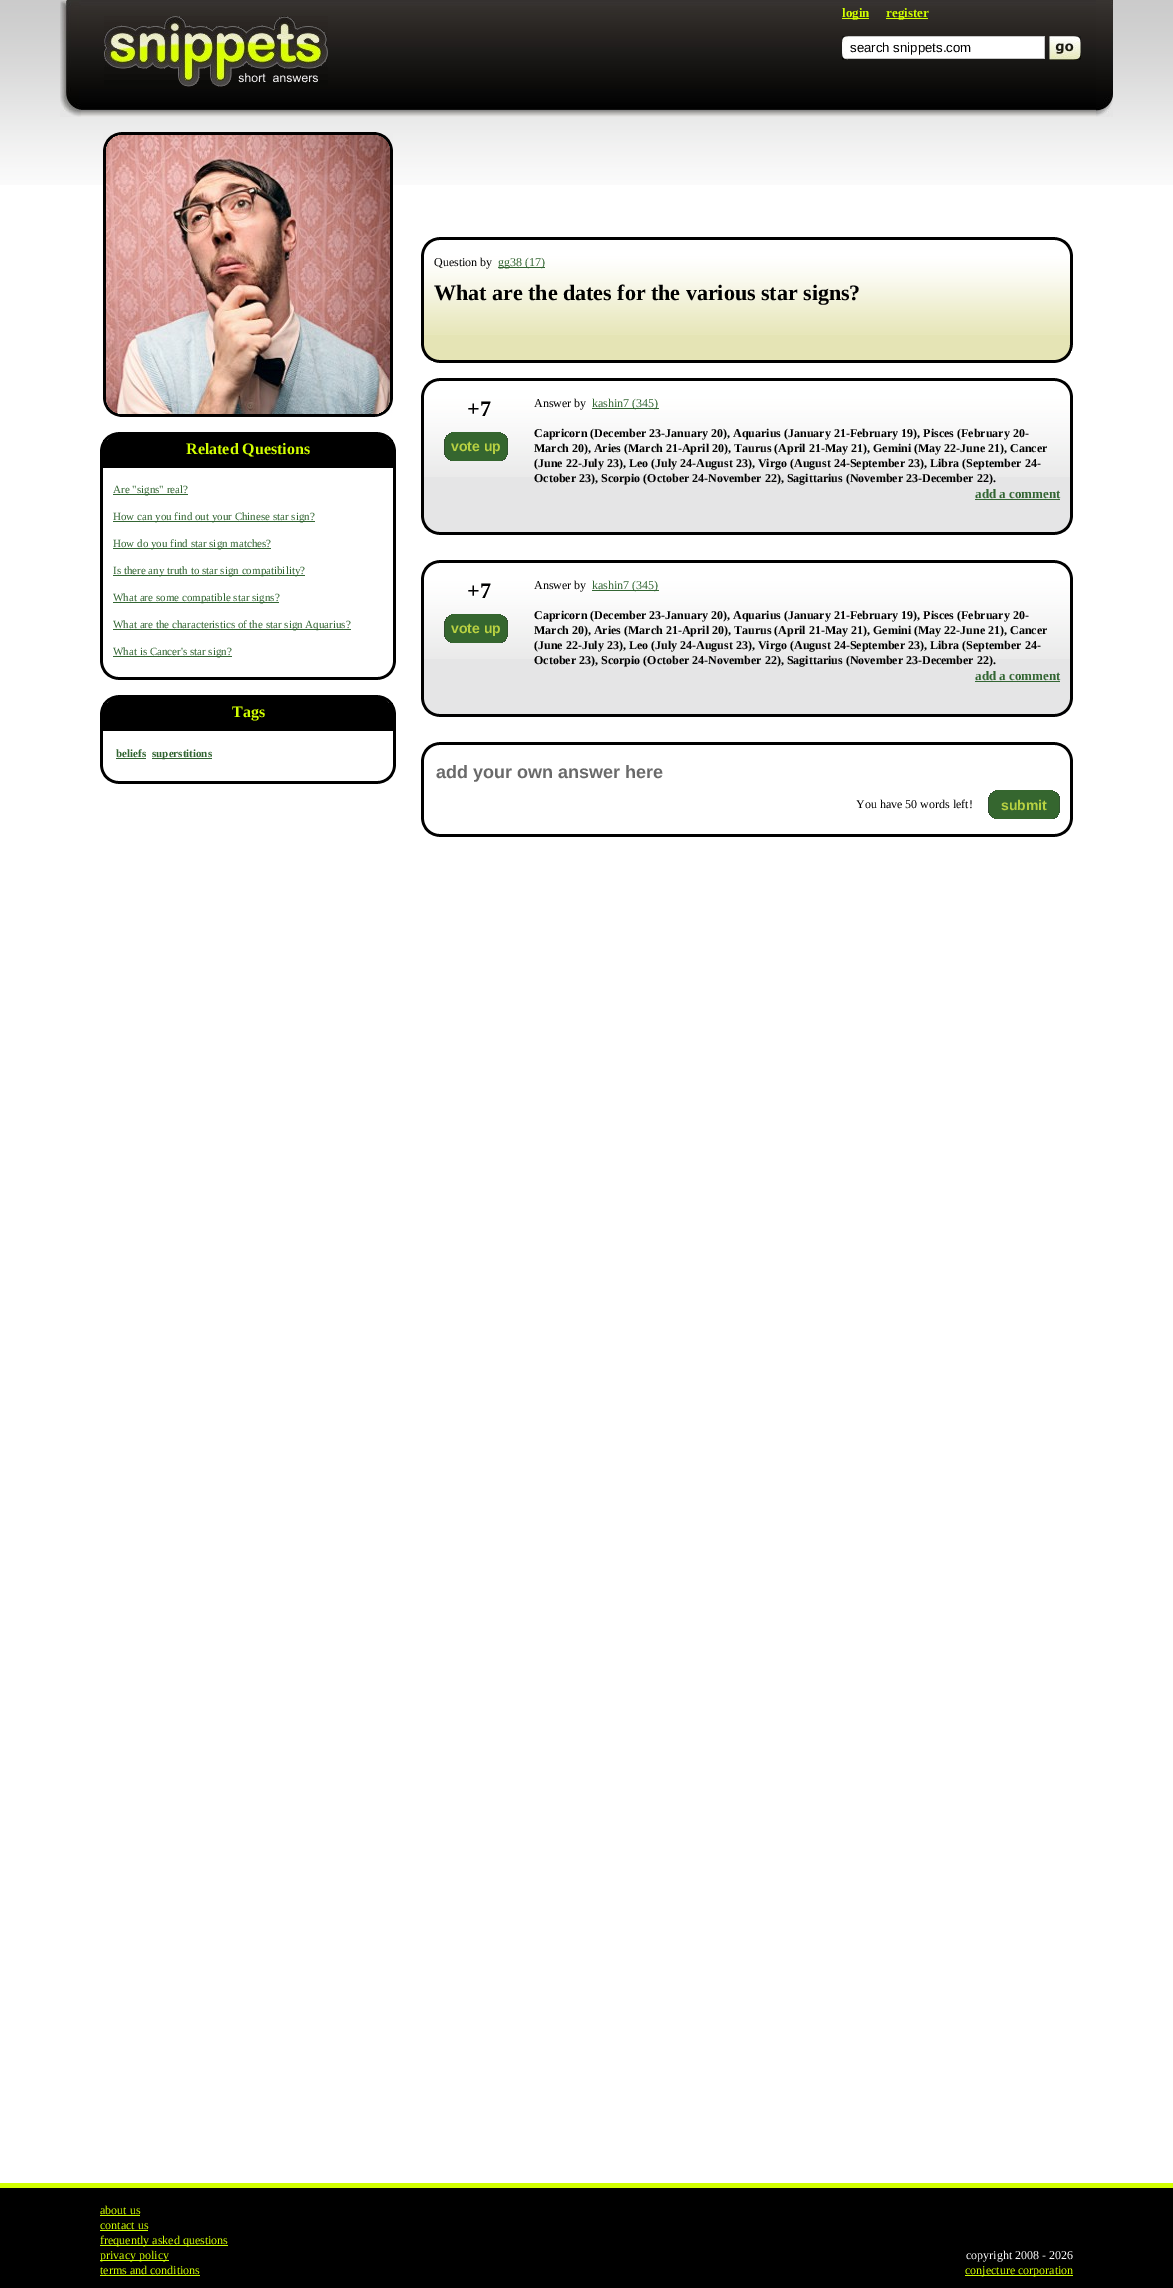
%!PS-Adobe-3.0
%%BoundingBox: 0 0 1173 2288
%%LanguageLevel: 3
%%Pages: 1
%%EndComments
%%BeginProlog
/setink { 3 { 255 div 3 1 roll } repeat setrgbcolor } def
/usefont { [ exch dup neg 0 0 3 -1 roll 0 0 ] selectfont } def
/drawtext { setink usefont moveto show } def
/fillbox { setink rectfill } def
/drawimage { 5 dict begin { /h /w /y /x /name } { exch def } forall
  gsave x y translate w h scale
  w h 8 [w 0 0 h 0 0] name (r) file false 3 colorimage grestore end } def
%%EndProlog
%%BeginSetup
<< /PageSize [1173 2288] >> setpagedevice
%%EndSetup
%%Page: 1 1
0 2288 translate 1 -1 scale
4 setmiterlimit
0 0 1173 2288 255 255 255 fillbox
(assets/img1.rgb) 0 0 1173 185 drawimage
(assets/img2.rgb) 60 0 21 117 drawimage
(assets/img3.rgb) 81 0 1015 110 drawimage
(assets/img4.rgb) 104 16 224 71 drawimage
842 18 27 1 210 255 0 fillbox
(login) 842 17 /LiberationSerif-Bold 13 210 255 0 drawtext
886 18 42 1 210 255 0 fillbox
(register) 886 17 /LiberationSerif-Bold 13 210 255 0 drawtext
(assets/img5.rgb) 842 36 6 24 drawimage
848 37 196 21 255 255 255 fillbox
848 36 197 1 199 199 199 fillbox
1044 36 1 23 199 199 199 fillbox
848 58 197 1 199 199 199 fillbox
(search snippets.com) 850 52 /LiberationSans-Regular 13.25 0 0 0 drawtext
(assets/img6.rgb) 1049 36 32 24 drawimage
(assets/img7.rgb) 1096 0 17 117 drawimage
(assets/img8.rgb) 81 110 1015 7 drawimage
(assets/img9.rgb) 103 132 290 285 drawimage
(assets/img10.rgb) 100 432 18 18 drawimage
118 432 260 8 0 0 0 fillbox
(assets/img11.rgb) 378 432 18 18 drawimage
100 450 3 212 0 0 0 fillbox
103 440 290 28 0 0 0 fillbox
(Related Questions) 186 454 /LiberationSerif-Bold 16 210 255 0 drawtext
113 494 75 1 51 102 51 fillbox
(Are "signs" real?) 113 493 /LiberationSerif-Regular 11 51 102 51 drawtext
113 521 202 1 51 102 51 fillbox
(How can you find out your Chinese star sign?) 113 520 /LiberationSerif-Regular 11 51 102 51 drawtext
113 548 158 1 51 102 51 fillbox
(How do you find star sign matches?) 113 547 /LiberationSerif-Regular 11 51 102 51 drawtext
113 575 192 1 51 102 51 fillbox
(Is there any truth to star sign compatibility?) 113 574 /LiberationSerif-Regular 11 51 102 51 drawtext
113 602 166 1 51 102 51 fillbox
(What are some compatible star signs?) 113 601 /LiberationSerif-Regular 11 51 102 51 drawtext
113 629 238 1 51 102 51 fillbox
(What are the characteristics of the star sign Aquarius?) 113 628 /LiberationSerif-Regular 11 51 102 51 drawtext
113 656 119 1 51 102 51 fillbox
(What is Cancer's star sign?) 113 655 /LiberationSerif-Regular 11 51 102 51 drawtext
393 450 3 212 0 0 0 fillbox
(assets/img12.rgb) 100 662 18 18 drawimage
118 677 260 3 0 0 0 fillbox
(assets/img13.rgb) 378 662 18 18 drawimage
(assets/img10.rgb) 100 695 18 18 drawimage
118 695 260 8 0 0 0 fillbox
(assets/img11.rgb) 378 695 18 18 drawimage
100 713 3 53 0 0 0 fillbox
103 703 290 28 0 0 0 fillbox
(Tags) 232 717 /LiberationSerif-Bold 16 210 255 0 drawtext
(beliefs) 116 757 /LiberationSerif-Bold 11 51 102 51 drawtext
116 758 30 1 51 102 51 fillbox
152 758 60 1 51 102 51 fillbox
(superstitions) 152 757 /LiberationSerif-Bold 11 51 102 51 drawtext
393 713 3 53 0 0 0 fillbox
(assets/img12.rgb) 100 766 18 18 drawimage
118 781 260 3 0 0 0 fillbox
(assets/img13.rgb) 378 766 18 18 drawimage
(assets/img14.rgb) 421 237 18 18 drawimage
439 237 616 3 0 0 0 fillbox
(assets/img15.rgb) 1055 237 18 18 drawimage
421 255 3 90 0 0 0 fillbox
424 335 646 10 229 228 181 fillbox
(assets/img16.rgb) 424 255 646 80 drawimage
(Question by) 434 266 /LiberationSerif-Regular 12 0 0 0 drawtext
498 267 47 1 51 102 51 fillbox
(gg38 \(17\)) 498 266 /LiberationSerif-Regular 12 51 102 51 drawtext
(What are the dates for the various star signs?) 434 300 /LiberationSerif-Bold 22 0 0 0 drawtext
1070 255 3 90 0 0 0 fillbox
(assets/img17.rgb) 421 345 18 18 drawimage
439 345 616 15 229 228 181 fillbox
439 360 616 3 0 0 0 fillbox
(assets/img18.rgb) 1055 345 18 18 drawimage
(assets/img14.rgb) 421 378 18 18 drawimage
439 378 616 3 0 0 0 fillbox
(assets/img15.rgb) 1055 378 18 18 drawimage
421 396 3 121 0 0 0 fillbox
424 477 646 40 229 229 230 fillbox
(assets/img19.rgb) 424 396 646 81 drawimage
(+7) 467 416 /LiberationSerif-Bold 22 0 0 0 drawtext
(assets/img20.rgb) 444 433 7 28 drawimage
451 432 50 29 53 102 47 fillbox
(vote up) 451 451 /LiberationSans-Bold 14 184 209 66 drawtext
(assets/img21.rgb) 501 433 7 28 drawimage
(Answer by) 534 407 /LiberationSerif-Regular 12 0 0 0 drawtext
592 408 67 1 51 102 51 fillbox
(kashin7 \(345\)) 592 407 /LiberationSerif-Regular 12 51 102 51 drawtext
(Capricorn \(December 23-January 20\), Aquarius \(January 21-February 19\), Pisces \(February 20-) 534 437 /LiberationSerif-Bold 12 0 0 0 drawtext
(March 20\), Aries \(March 21-April 20\), Taurus \(April 21-May 21\), Gemini \(May 22-June 21\), Cancer) 534 452 /LiberationSerif-Bold 12 0 0 0 drawtext
(\(June 22-July 23\), Leo \(July 24-August 23\), Virgo \(August 24-September 23\), Libra \(September 24-) 534 467 /LiberationSerif-Bold 12 0 0 0 drawtext
(October 23\), Scorpio \(October 24-November 22\), Sagittarius \(November 23-December 22\).) 534 482 /LiberationSerif-Bold 12 0 0 0 drawtext
(add a comment) 975 498 /LiberationSerif-Bold 13 51 102 51 drawtext
975 499 85 1 51 102 51 fillbox
1070 396 3 121 0 0 0 fillbox
(assets/img22.rgb) 421 517 18 18 drawimage
439 517 616 15 229 229 230 fillbox
439 532 616 3 0 0 0 fillbox
(assets/img23.rgb) 1055 517 18 18 drawimage
(assets/img14.rgb) 421 560 18 18 drawimage
439 560 616 3 0 0 0 fillbox
(assets/img15.rgb) 1055 560 18 18 drawimage
421 578 3 121 0 0 0 fillbox
424 659 646 40 229 229 230 fillbox
(assets/img19.rgb) 424 578 646 81 drawimage
(+7) 467 598 /LiberationSerif-Bold 22 0 0 0 drawtext
(assets/img20.rgb) 444 615 7 28 drawimage
451 614 50 29 53 102 47 fillbox
(vote up) 451 633 /LiberationSans-Bold 14 184 209 66 drawtext
(assets/img21.rgb) 501 615 7 28 drawimage
(Answer by) 534 589 /LiberationSerif-Regular 12 0 0 0 drawtext
592 590 67 1 51 102 51 fillbox
(kashin7 \(345\)) 592 589 /LiberationSerif-Regular 12 51 102 51 drawtext
(Capricorn \(December 23-January 20\), Aquarius \(January 21-February 19\), Pisces \(February 20-) 534 619 /LiberationSerif-Bold 12 0 0 0 drawtext
(March 20\), Aries \(March 21-April 20\), Taurus \(April 21-May 21\), Gemini \(May 22-June 21\), Cancer) 534 634 /LiberationSerif-Bold 12 0 0 0 drawtext
(\(June 22-July 23\), Leo \(July 24-August 23\), Virgo \(August 24-September 23\), Libra \(September 24-) 534 649 /LiberationSerif-Bold 12 0 0 0 drawtext
(October 23\), Scorpio \(October 24-November 22\), Sagittarius \(November 23-December 22\).) 534 664 /LiberationSerif-Bold 12 0 0 0 drawtext
(add a comment) 975 680 /LiberationSerif-Bold 13 51 102 51 drawtext
975 681 85 1 51 102 51 fillbox
1070 578 3 121 0 0 0 fillbox
(assets/img22.rgb) 421 699 18 18 drawimage
439 699 616 15 229 229 230 fillbox
439 714 616 3 0 0 0 fillbox
(assets/img23.rgb) 1055 699 18 18 drawimage
(assets/img14.rgb) 421 742 18 18 drawimage
439 742 616 3 0 0 0 fillbox
(assets/img15.rgb) 1055 742 18 18 drawimage
421 760 3 59 0 0 0 fillbox
(add your own answer here) 436 778 /LiberationSans-Bold 18 106 106 106 drawtext
(You have 50 words left!) 856 808 /LiberationSerif-Regular 12 0 0 0 drawtext
(assets/img24.rgb) 988 791 7 28 drawimage
995 790 58 29 53 102 47 fillbox
(submit) 1001 810 /LiberationSans-Bold 14 184 209 66 drawtext
(assets/img25.rgb) 1053 791 7 28 drawimage
1070 760 3 59 0 0 0 fillbox
(assets/img12.rgb) 421 819 18 18 drawimage
439 834 616 3 0 0 0 fillbox
(assets/img13.rgb) 1055 819 18 18 drawimage
0 2188 1173 100 0 0 0 fillbox
0 2183 1173 5 210 255 0 fillbox
(about us) 100 2214 /LiberationSerif-Regular 12 210 255 0 drawtext
100 2215 40 1 210 255 0 fillbox
(contact us) 100 2229 /LiberationSerif-Regular 12 210 255 0 drawtext
100 2230 48 1 210 255 0 fillbox
100 2245 128 1 210 255 0 fillbox
(frequently asked questions) 100 2244 /LiberationSerif-Regular 12 210 255 0 drawtext
100 2260 69 1 210 255 0 fillbox
(privacy policy) 100 2259 /LiberationSerif-Regular 12 210 255 0 drawtext
(terms and conditions) 100 2274 /LiberationSerif-Regular 12 210 255 0 drawtext
100 2275 100 1 210 255 0 fillbox
(copyright 2008 - 2026) 966 2259 /LiberationSerif-Regular 12 255 255 255 drawtext
965 2275 108 1 210 255 0 fillbox
(conjecture corporation) 965 2274 /LiberationSerif-Regular 12 210 255 0 drawtext
showpage
%%EOF
